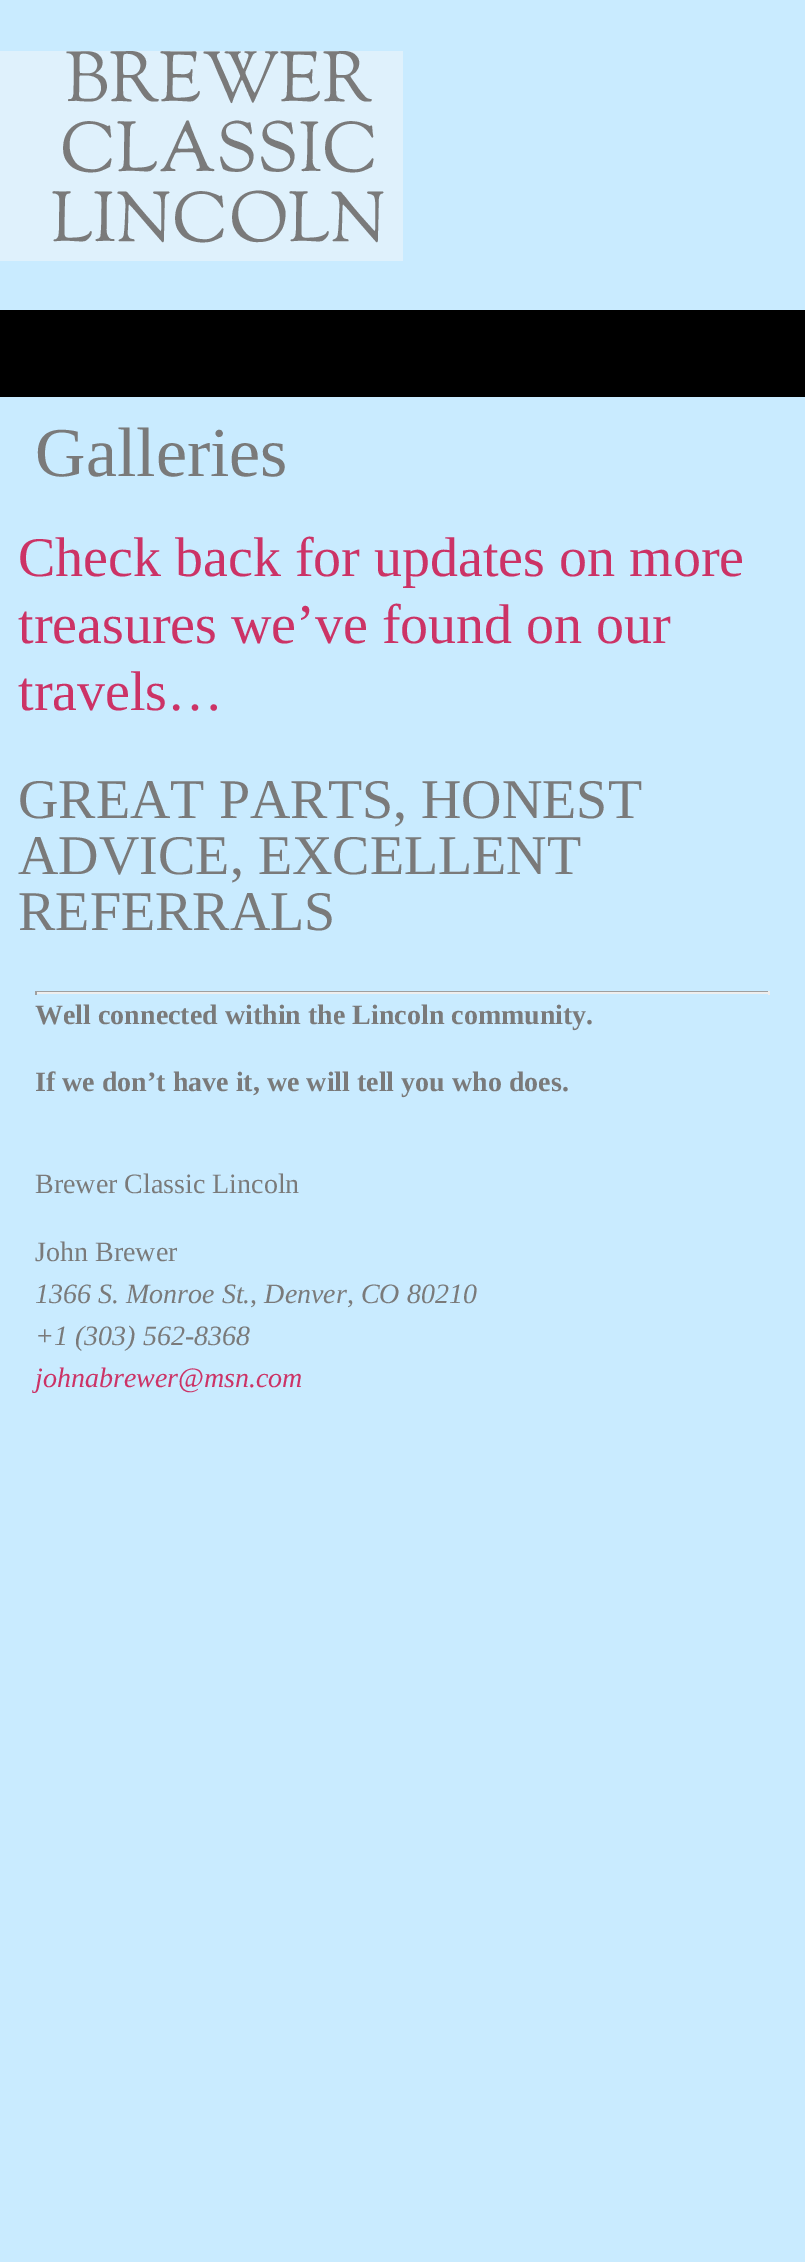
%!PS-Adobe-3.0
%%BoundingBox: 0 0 805 2262
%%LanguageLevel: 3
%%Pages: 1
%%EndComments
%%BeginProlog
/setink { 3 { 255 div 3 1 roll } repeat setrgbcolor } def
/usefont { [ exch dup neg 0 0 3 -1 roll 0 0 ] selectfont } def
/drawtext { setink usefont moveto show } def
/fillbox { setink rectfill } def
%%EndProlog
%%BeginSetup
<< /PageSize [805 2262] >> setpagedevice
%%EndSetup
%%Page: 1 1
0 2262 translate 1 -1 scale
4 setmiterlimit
0 0 805 2262 201 235 255 fillbox
0 51 403 210 223 241 252 fillbox
(BREWER) 65 101 /SortsMillGoudy-Regular 70 122 122 122 drawtext
(CLASSIC) 60 171 /SortsMillGoudy-Regular 70 122 122 122 drawtext
(LINCOLN) 51 241 /SortsMillGoudy-Regular 70 122 122 122 drawtext
0 310 805 87 0 0 0 fillbox
(Galleries) 35 476 /LiberationSerif-Regular 70 122 122 122 drawtext
(Check back for updates on more) 18 576 /LiberationSerif-Regular 56 204 51 102 drawtext
(treasures we’ve found on our) 18 643 /LiberationSerif-Regular 56 204 51 102 drawtext
(travels…) 18 710 /LiberationSerif-Regular 56 204 51 102 drawtext
(GREAT PARTS, HONEST) 18 818 /LiberationSerif-Regular 56 122 122 122 drawtext
(ADVICE, EXCELLENT) 18 874 /LiberationSerif-Regular 56 122 122 122 drawtext
(REFERRALS) 18 930 /LiberationSerif-Regular 56 122 122 122 drawtext
35 991 735 1 159 159 159 fillbox
768 991 2 4 238 238 238 fillbox
35 992 735 2 238 238 238 fillbox
35 991 2 4 159 159 159 fillbox
(Well connected within the Lincoln community.) 35 1024 /LiberationSerif-Bold 28 122 122 122 drawtext
(If we don’t have it, we will tell you who does.) 35 1091 /LiberationSerif-Bold 28 122 122 122 drawtext
(Brewer Classic Lincoln) 35 1193 /LiberationSerif-Regular 28 122 122 122 drawtext
(John Brewer) 35 1261 /LiberationSerif-Regular 28 122 122 122 drawtext
(1366 S. Monroe St., Denver, CO 80210) 35 1303 /LiberationSerif-Italic 28 122 122 122 drawtext
(+1 \(303\) 562-8368) 35 1345 /LiberationSerif-Italic 28 122 122 122 drawtext
(johnabrewer@msn.com) 35 1387 /LiberationSerif-Italic 28 204 51 102 drawtext
showpage
%%EOF
